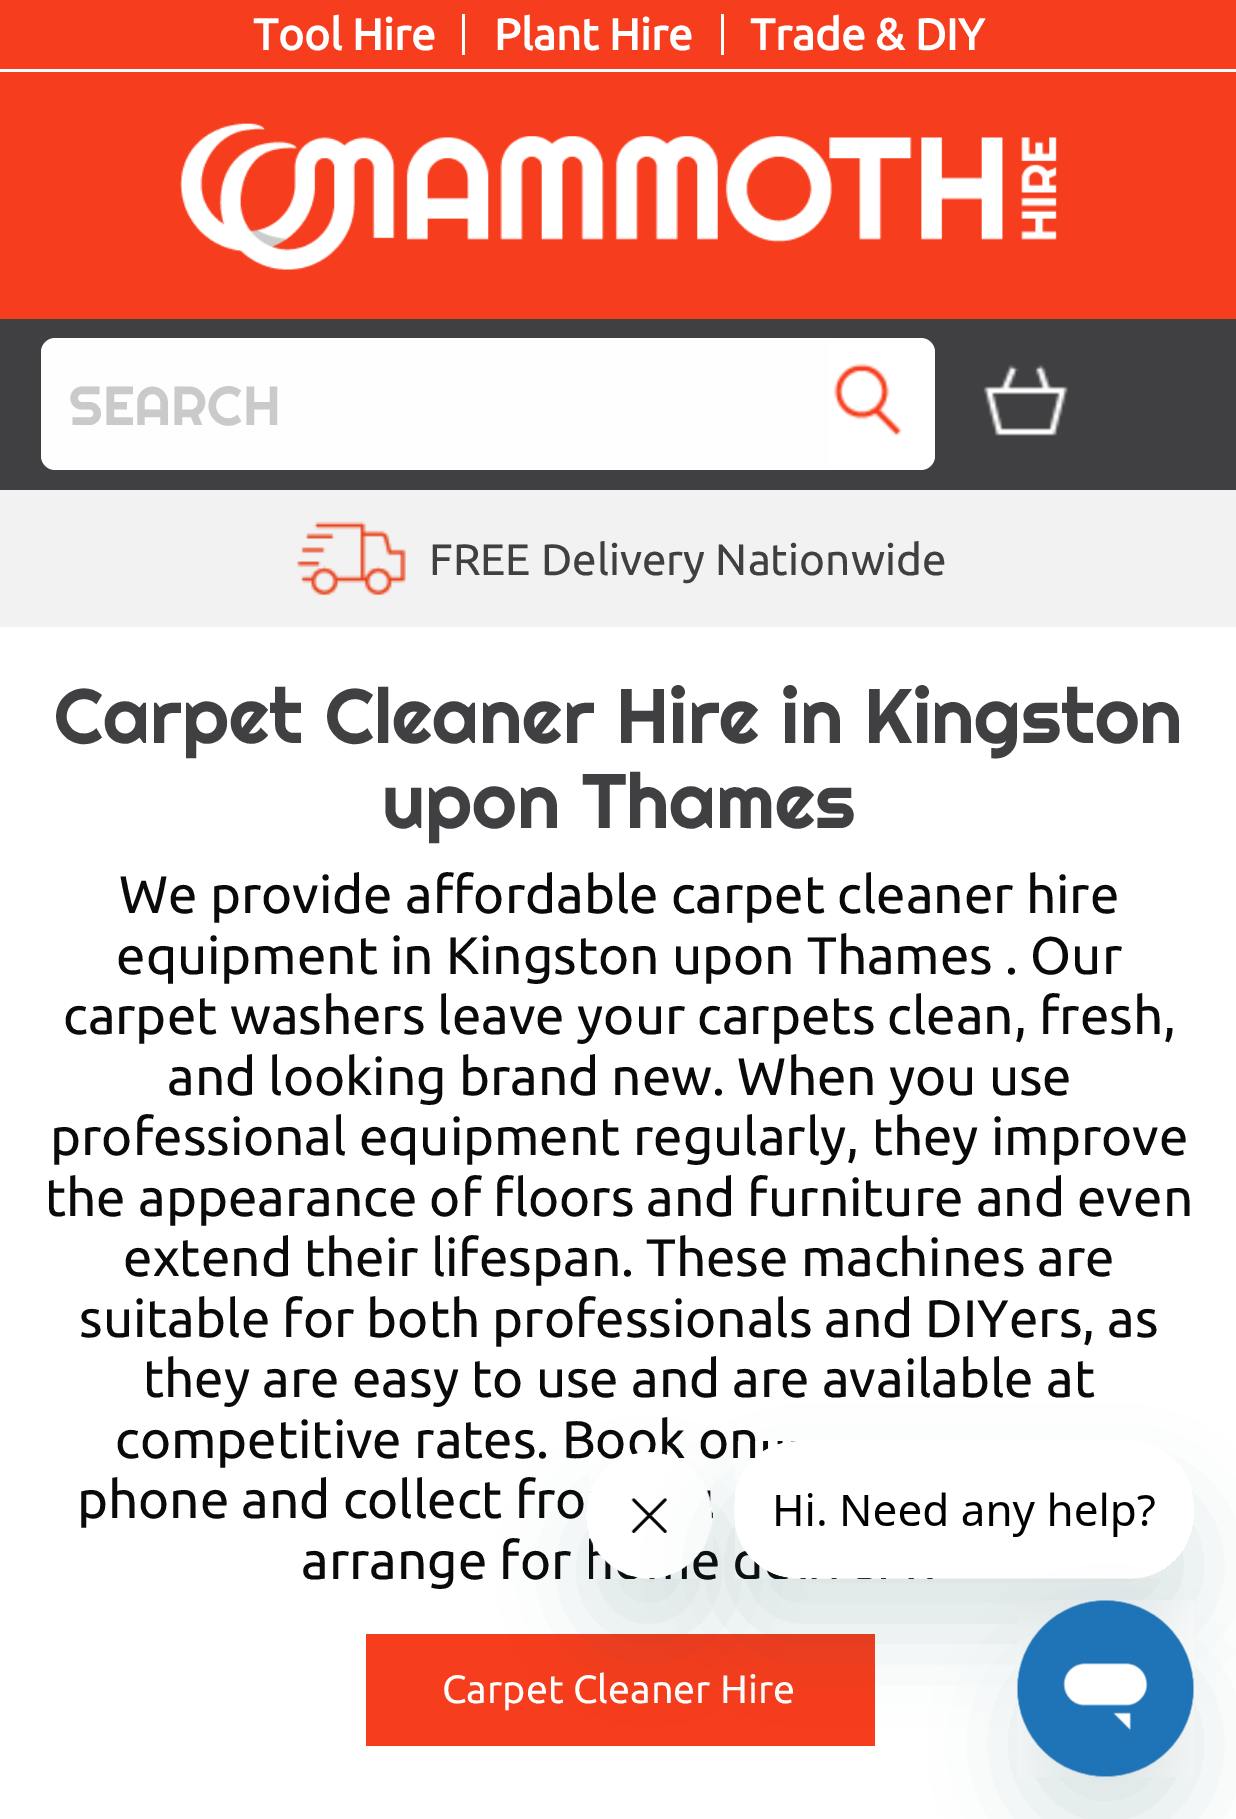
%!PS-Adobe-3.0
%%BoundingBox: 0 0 1236 1819
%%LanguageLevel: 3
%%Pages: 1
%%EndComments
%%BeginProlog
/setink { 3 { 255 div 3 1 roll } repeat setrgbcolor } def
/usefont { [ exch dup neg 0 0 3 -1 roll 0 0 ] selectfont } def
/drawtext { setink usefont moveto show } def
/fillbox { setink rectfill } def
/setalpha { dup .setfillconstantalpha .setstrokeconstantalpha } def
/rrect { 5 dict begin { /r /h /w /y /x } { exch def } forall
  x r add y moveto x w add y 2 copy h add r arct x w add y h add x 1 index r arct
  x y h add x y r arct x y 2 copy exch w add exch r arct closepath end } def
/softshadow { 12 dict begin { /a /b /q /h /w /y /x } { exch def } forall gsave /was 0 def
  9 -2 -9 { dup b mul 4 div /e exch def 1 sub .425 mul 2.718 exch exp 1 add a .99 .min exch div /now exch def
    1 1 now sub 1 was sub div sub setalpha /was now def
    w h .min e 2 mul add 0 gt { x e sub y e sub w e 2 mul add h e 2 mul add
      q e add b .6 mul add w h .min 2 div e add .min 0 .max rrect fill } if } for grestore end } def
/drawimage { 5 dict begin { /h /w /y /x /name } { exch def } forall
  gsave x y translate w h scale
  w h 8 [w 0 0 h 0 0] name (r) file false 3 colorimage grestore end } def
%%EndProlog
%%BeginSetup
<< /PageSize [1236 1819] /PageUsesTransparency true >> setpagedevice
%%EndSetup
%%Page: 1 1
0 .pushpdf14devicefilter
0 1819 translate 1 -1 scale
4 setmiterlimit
0 0 1236 1819 255 255 255 fillbox
0 0 1236 69 246 61 29 fillbox
462 14 3 41 255 255 255 fillbox
(Tool Hire) 253 50 /Ubuntu-Bold 44 255 255 255 drawtext
721 14 3 41 255 255 255 fillbox
(Plant Hire) 494 50 /Ubuntu-Bold 44 255 255 255 drawtext
(Trade & DIY) 750 50 /Ubuntu-Bold 44 255 255 255 drawtext
0 72 1236 247 246 61 29 fillbox
(assets/img1.rgb) 180 123 877 147 drawimage
0 319 1236 171 64 64 66 fillbox
254 254 254 setink
55 338 moveto 828 338 lineto 828 470 lineto 55 470 lineto 47.5 470 41 463.5 41 456 curveto 41 352 lineto 41 344.5 47.5 338 55 338 curveto closepath fill
(SEARCH) 69 425 /Righteous-Regular 55 202 202 202 drawtext
255 255 255 setink
828 338 moveto 921 338 lineto 928.5 338 935 344.5 935 352 curveto 935 456 lineto 935 463.5 928.5 470 921 470 curveto 828 470 lineto closepath fill
(assets/img2.rgb) 833 363 70 73 drawimage
(assets/img3.rgb) 983 364 85 72 drawimage
0 490 1236 137 242 242 242 fillbox
(assets/img4.rgb) 297 521 109 75 drawimage
(FREE Delivery Nationwide) 429 575 /Ubuntu-Regular 44 64 64 66 drawtext
(Carpet Cleaner Hire in Kingston) 54 743 /Righteous-Regular 77 64 64 66 drawtext
(upon Thames) 382 828 /Righteous-Regular 77 64 64 66 drawtext
(We provide affordable carpet cleaner hire) 119 913 /Ubuntu-Regular 52.8 10 10 10 drawtext
(equipment in Kingston upon Thames . Our) 116 974 /Ubuntu-Regular 52.8 10 10 10 drawtext
(carpet washers leave your carpets clean, fresh,) 63 1034 /Ubuntu-Regular 52.8 10 10 10 drawtext
(and looking brand new. When you use) 167 1095 /Ubuntu-Regular 52.8 10 10 10 drawtext
(professional equipment regularly, they improve) 50 1155 /Ubuntu-Regular 52.8 10 10 10 drawtext
(the appearance of floors and furniture and even) 45 1216 /Ubuntu-Regular 52.8 10 10 10 drawtext
(extend their lifespan. These machines are) 123 1276 /Ubuntu-Regular 52.8 10 10 10 drawtext
(suitable for both professionals and DIYers, as) 79 1337 /Ubuntu-Regular 52.8 10 10 10 drawtext
(they are easy to use and are available at) 143 1397 /Ubuntu-Regular 52.8 10 10 10 drawtext
(competitive rates. Book on) 115 1458 /Ubuntu-Regular 52.8 10 10 10 drawtext
(phone and collect fro) 77 1518 /Ubuntu-Regular 52.8 10 10 10 drawtext
(arrange for) 301 1579 /Ubuntu-Regular 52.8 10 10 10 drawtext
(e) 691 1579 /Ubuntu-Regular 52.8 10 10 10 drawtext
366 1634 509 112 246 61 29 fillbox
(Carpet Cleaner Hire) 442 1703 /Ubuntu-Regular 39.5 255 255 255 drawtext
gsave
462 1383 moveto 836 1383 lineto 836 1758 lineto 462 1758 lineto closepath 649 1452 moveto 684 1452 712 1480 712 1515 curveto 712 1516 lineto 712 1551 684 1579 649 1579 curveto 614 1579 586 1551 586 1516 curveto 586 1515 lineto 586 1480 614 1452 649 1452 curveto closepath eoclip newpath
23 73 77 setink
586 1507 126 127 63 41 0.15 softshadow
grestore
(assets/img6.rgb) 589 1452 124 127 drawimage
gsave
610 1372 moveto 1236 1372 lineto 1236 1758 lineto 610 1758 lineto closepath 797 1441 moveto 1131 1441 lineto 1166 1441 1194 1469 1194 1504 curveto 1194 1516 lineto 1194 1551 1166 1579 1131 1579 curveto 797 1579 lineto 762 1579 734 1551 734 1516 curveto 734 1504 lineto 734 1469 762 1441 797 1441 curveto closepath eoclip newpath
23 73 77 setink
734 1496 460 138 63 41 0.15 softshadow
grestore
(assets/img5.rgb) 735 1441 426 138 drawimage
23 73 77 setink
1018 1656 176 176 88 41 0.15 softshadow
(assets/img7.rgb) 1017 1600 177 177 drawimage
.poppdf14devicefilter showpage
%%EOF
